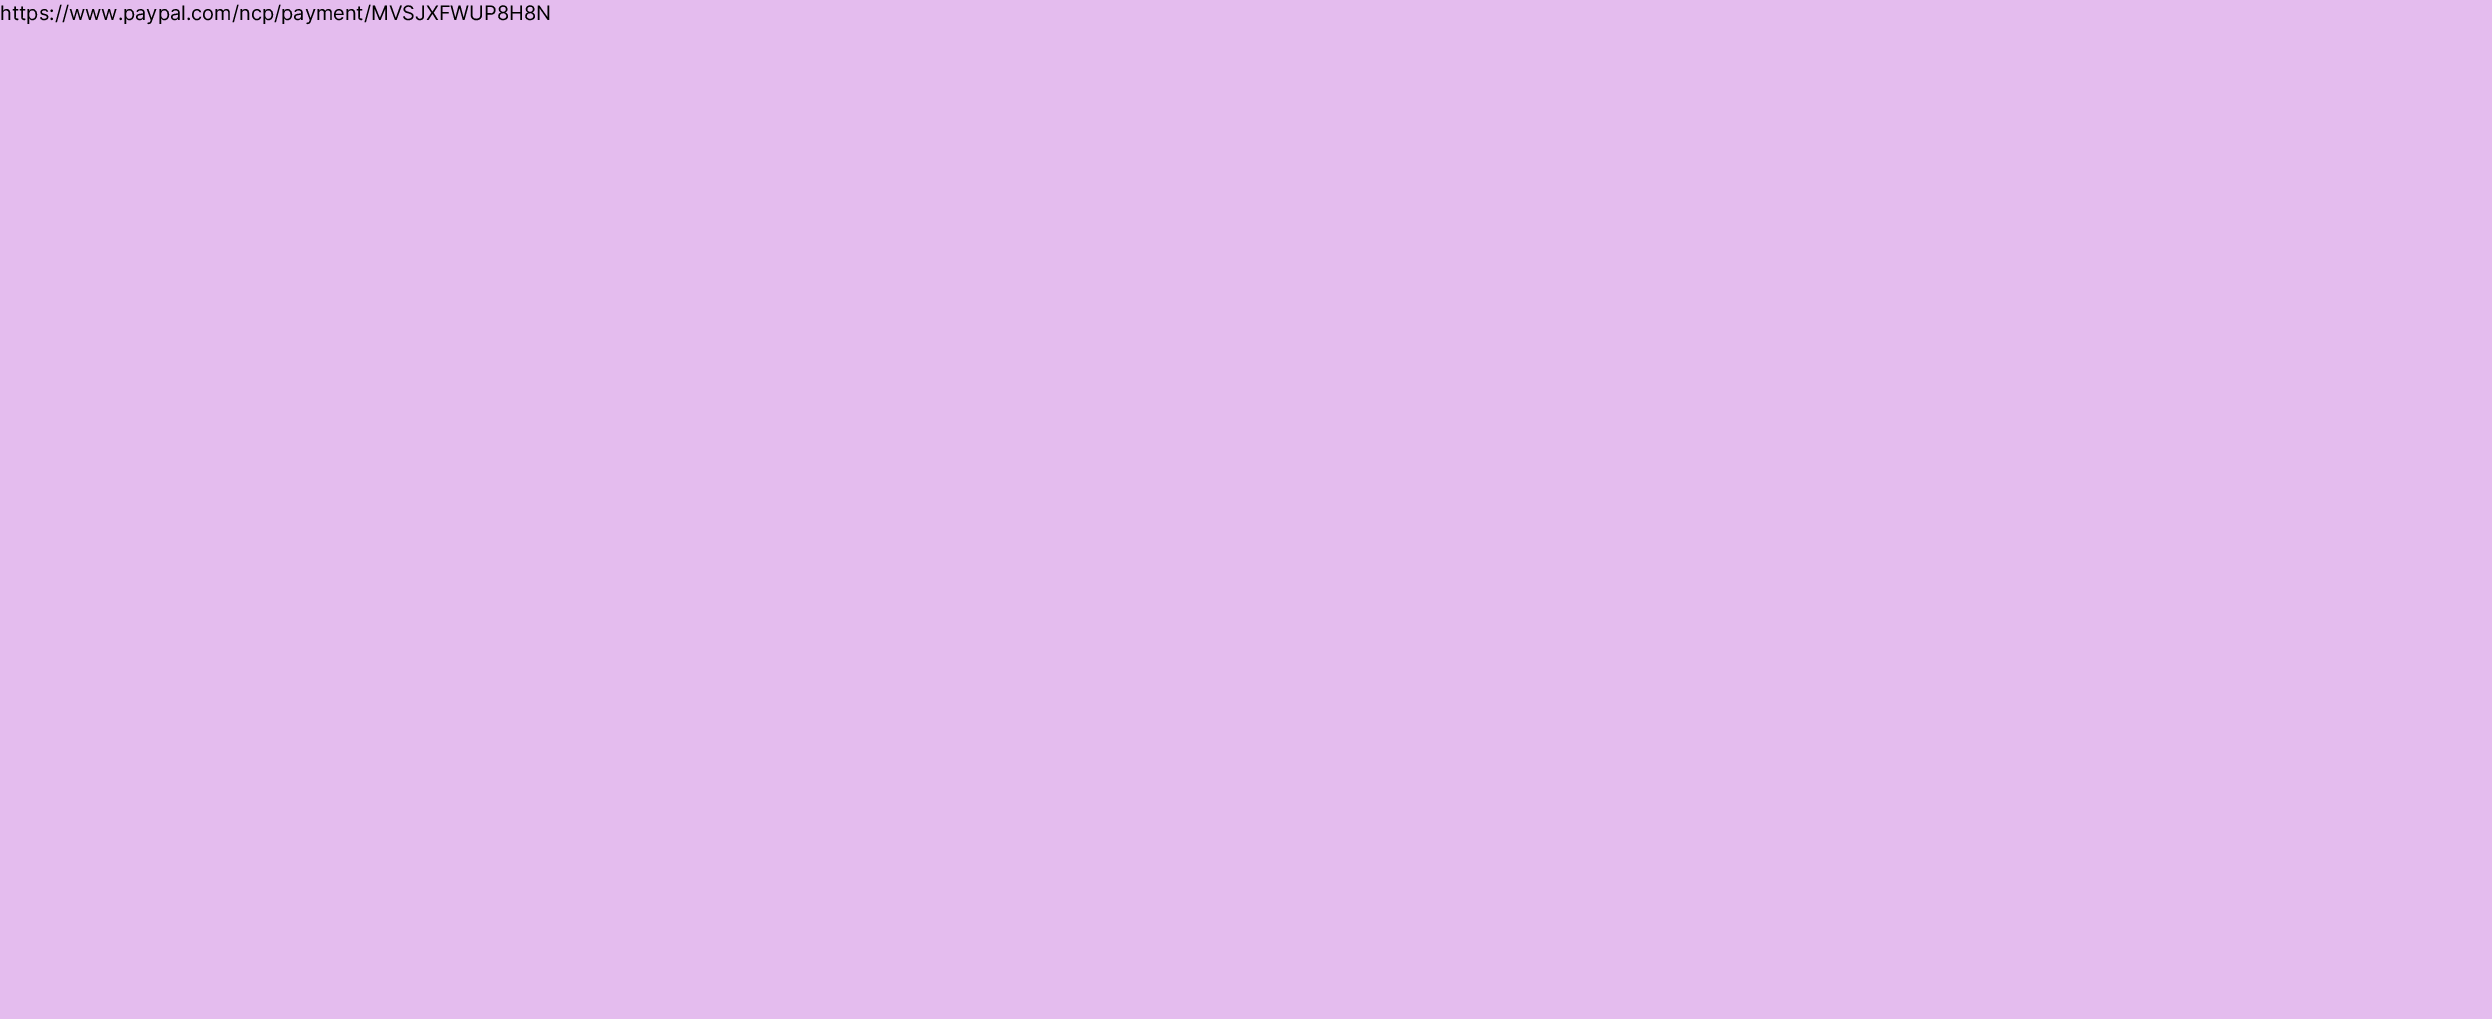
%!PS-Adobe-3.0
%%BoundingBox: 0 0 2492 1019
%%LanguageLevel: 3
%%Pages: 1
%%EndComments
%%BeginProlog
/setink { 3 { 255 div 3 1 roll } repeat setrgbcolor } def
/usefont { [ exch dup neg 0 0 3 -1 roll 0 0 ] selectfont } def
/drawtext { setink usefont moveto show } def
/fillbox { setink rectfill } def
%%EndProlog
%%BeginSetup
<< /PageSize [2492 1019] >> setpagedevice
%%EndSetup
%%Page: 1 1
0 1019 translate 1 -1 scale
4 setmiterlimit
0 0 2492 1019 228 188 238 fillbox
(https://www.paypal.com/ncp/payment/MVSJXFWUP8H8N) 0 20 /Inter-Regular 20 0 0 0 drawtext
showpage
%%EOF
